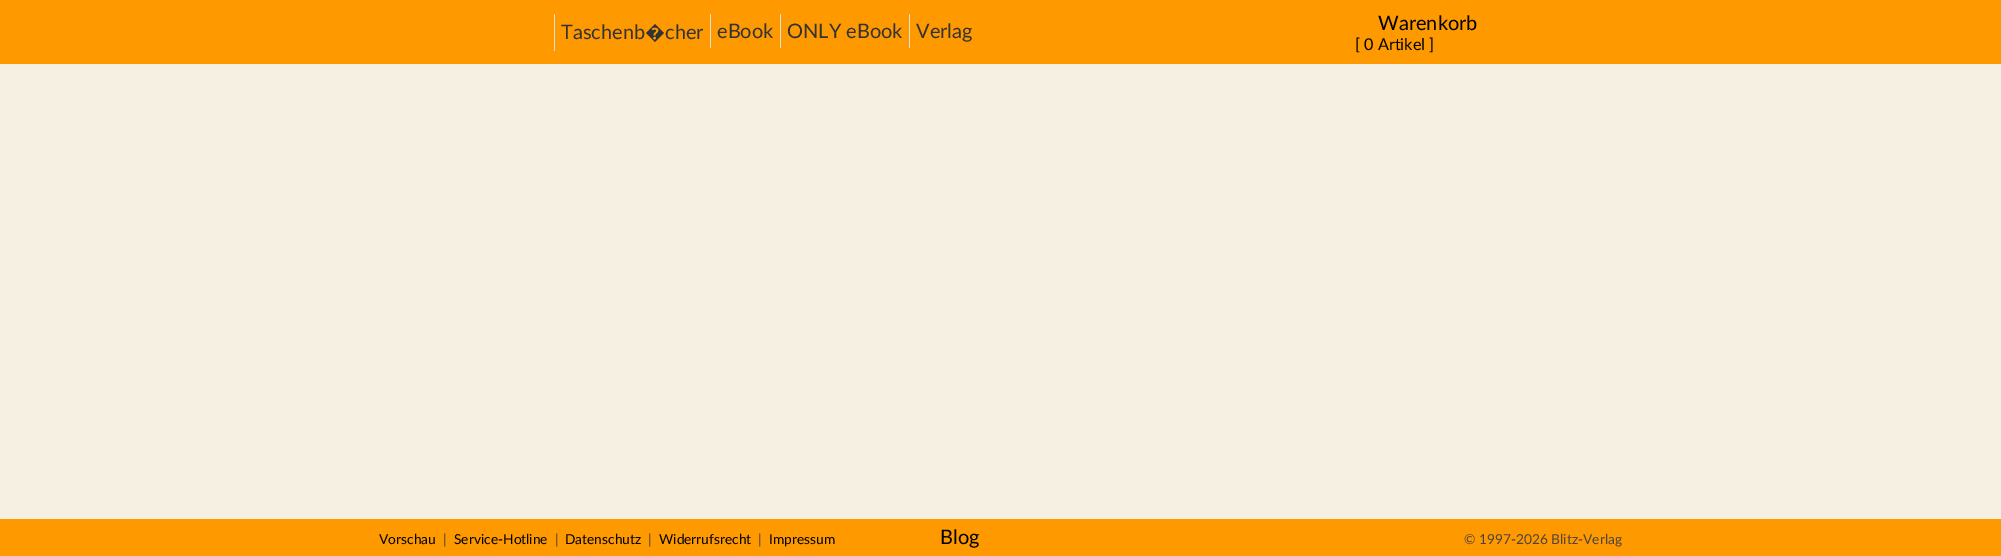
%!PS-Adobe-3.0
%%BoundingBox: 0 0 2001 556
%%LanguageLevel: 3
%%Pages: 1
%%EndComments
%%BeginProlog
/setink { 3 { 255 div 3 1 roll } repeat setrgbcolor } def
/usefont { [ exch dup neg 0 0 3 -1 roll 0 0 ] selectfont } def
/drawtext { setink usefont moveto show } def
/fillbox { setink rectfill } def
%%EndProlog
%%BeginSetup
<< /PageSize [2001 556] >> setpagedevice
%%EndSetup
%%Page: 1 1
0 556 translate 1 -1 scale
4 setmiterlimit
0 0 2001 556 245 240 226 fillbox
0 0 2001 64 255 153 0 fillbox
554 14 1 37 223 223 223 fillbox
(Taschenb) 561 39 /Lato-Regular 20 51 51 51 drawtext
(�) 645 39 /NotoSans-Regular 20 51 51 51 drawtext
(cher) 665 39 /Lato-Regular 20 51 51 51 drawtext
710 14 1 34 223 223 223 fillbox
(eBook) 717 38 /Lato-Regular 20 51 51 51 drawtext
780 14 1 34 223 223 223 fillbox
(ONLY eBook) 787 38 /Lato-Regular 20 51 51 51 drawtext
909 14 1 34 223 223 223 fillbox
(Verlag) 916 38 /Lato-Regular 20 51 51 51 drawtext
(Warenkorb) 1378 30 /Lato-Regular 20 0 0 0 drawtext
([ 0 Artikel ]) 1355 50 /Lato-Regular 16.25 0 0 0 drawtext
0 519 2001 37 255 153 0 fillbox
(Vorschau) 379 544 /Lato-Regular 13.75 0 0 0 drawtext
(|) 443 544 /Lato-Regular 13.75 78 68 60 drawtext
(Service-Hotline) 454 544 /Lato-Regular 13.75 0 0 0 drawtext
(|) 555 544 /Lato-Regular 13.75 78 68 60 drawtext
(Datenschutz) 565 544 /Lato-Regular 13.75 0 0 0 drawtext
(|) 648 544 /Lato-Regular 13.75 78 68 60 drawtext
(Widerrufsrecht) 659 544 /Lato-Regular 13.75 0 0 0 drawtext
(|) 758 544 /Lato-Regular 13.75 78 68 60 drawtext
(Impressum) 769 544 /Lato-Regular 13.75 0 0 0 drawtext
(Blog) 940 544 /Lato-Regular 20 0 0 0 drawtext
(© 1997-2026 Blitz-Verlag) 1464 544 /Lato-Regular 13.75 78 68 60 drawtext
showpage
%%EOF
